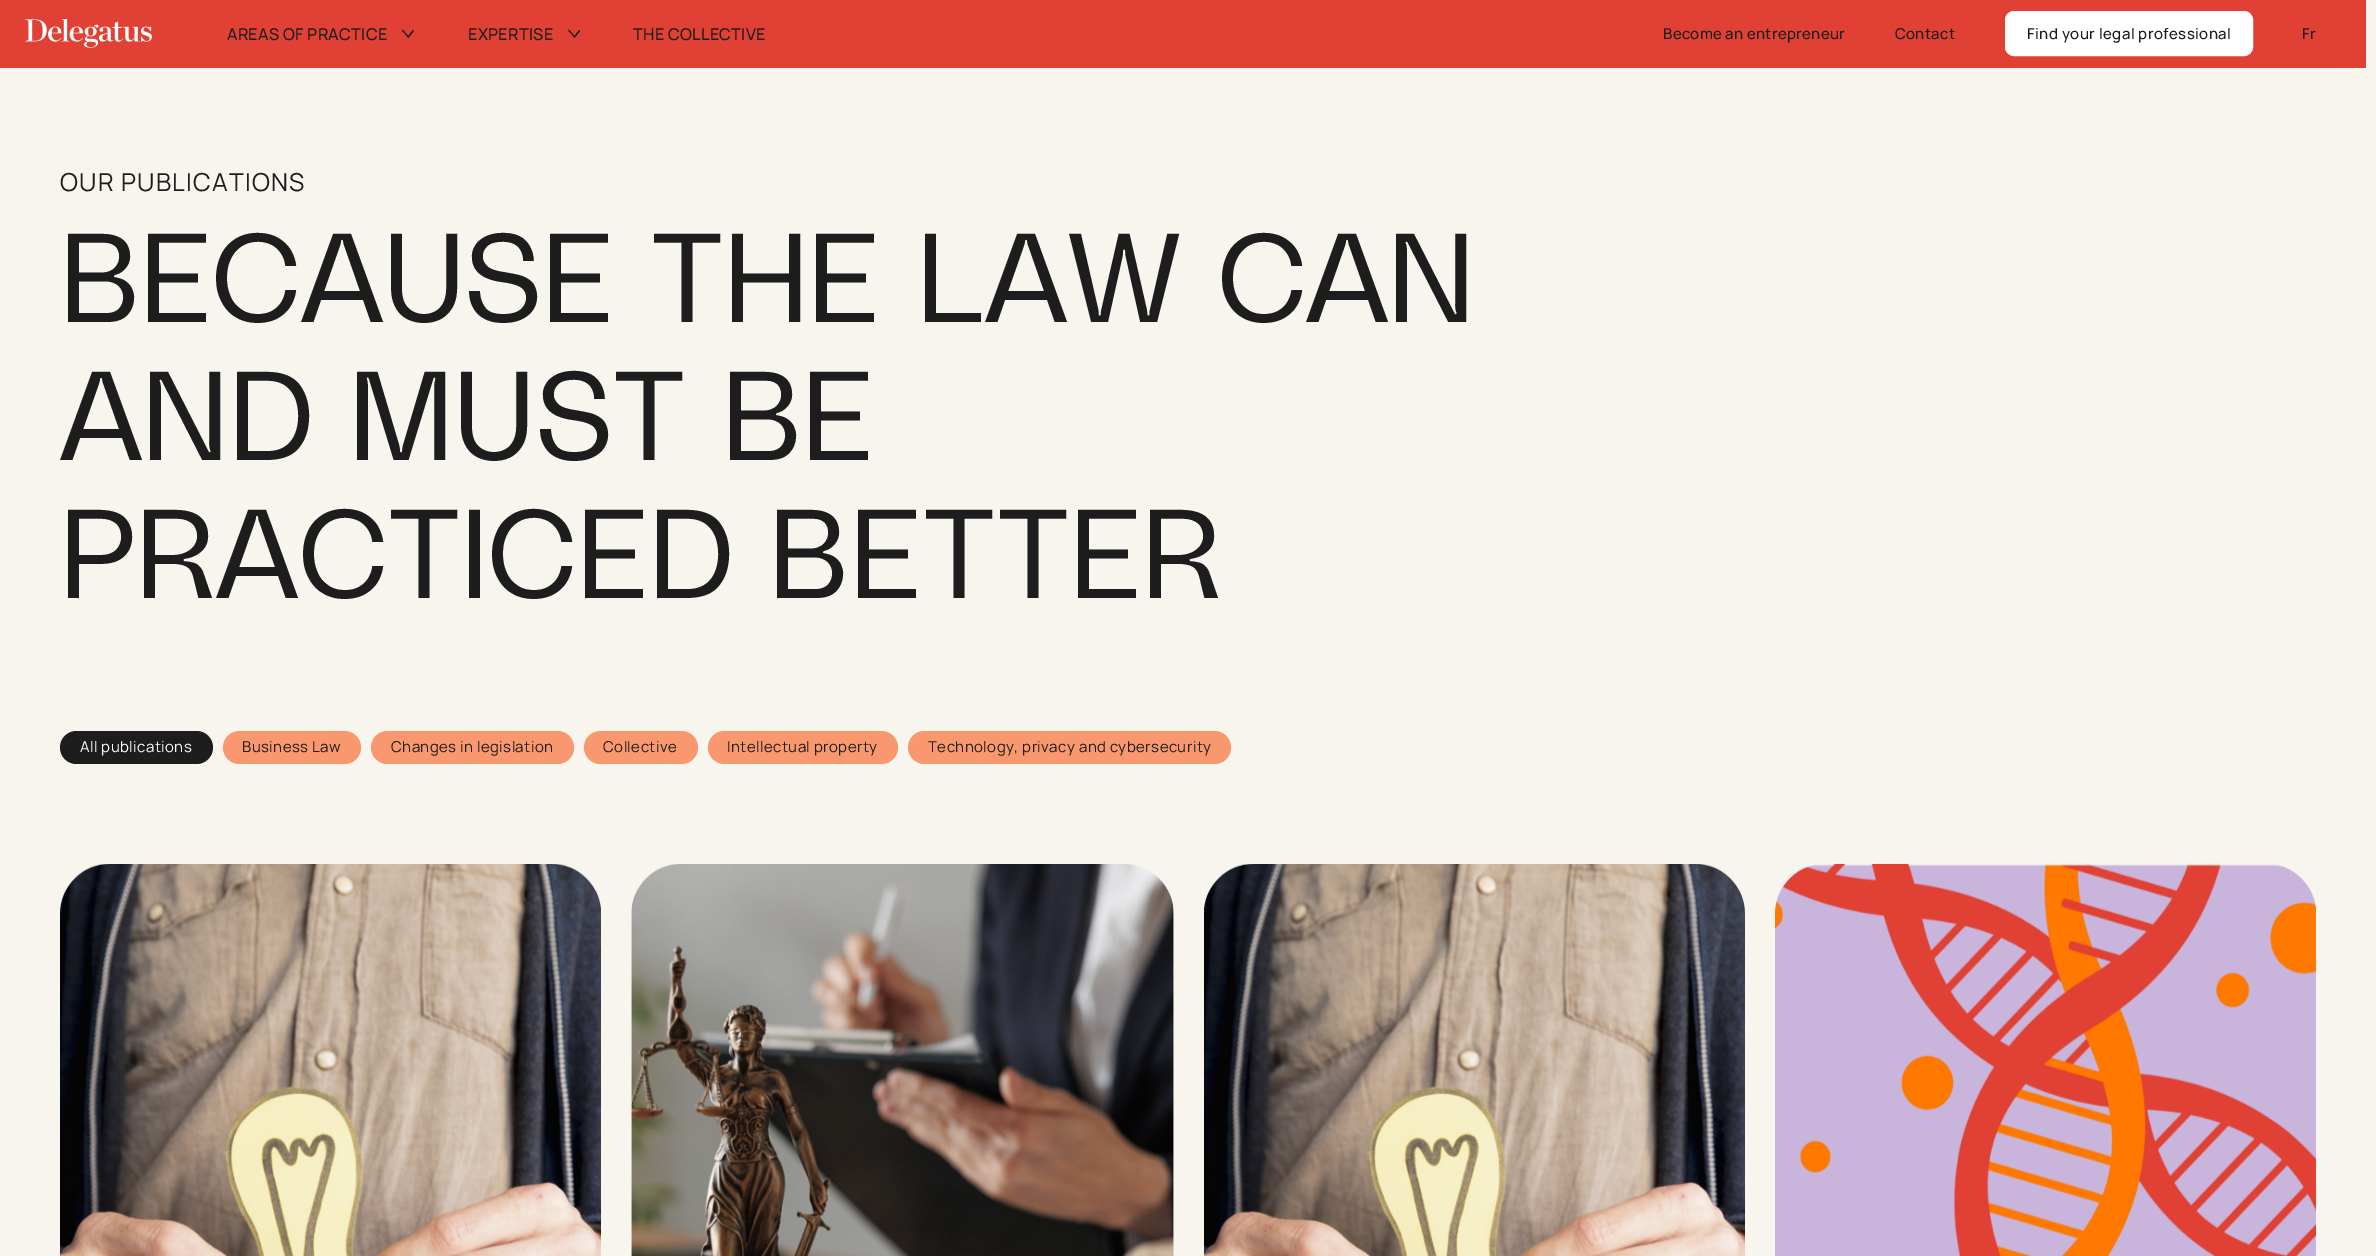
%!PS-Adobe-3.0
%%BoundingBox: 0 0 2376 1256
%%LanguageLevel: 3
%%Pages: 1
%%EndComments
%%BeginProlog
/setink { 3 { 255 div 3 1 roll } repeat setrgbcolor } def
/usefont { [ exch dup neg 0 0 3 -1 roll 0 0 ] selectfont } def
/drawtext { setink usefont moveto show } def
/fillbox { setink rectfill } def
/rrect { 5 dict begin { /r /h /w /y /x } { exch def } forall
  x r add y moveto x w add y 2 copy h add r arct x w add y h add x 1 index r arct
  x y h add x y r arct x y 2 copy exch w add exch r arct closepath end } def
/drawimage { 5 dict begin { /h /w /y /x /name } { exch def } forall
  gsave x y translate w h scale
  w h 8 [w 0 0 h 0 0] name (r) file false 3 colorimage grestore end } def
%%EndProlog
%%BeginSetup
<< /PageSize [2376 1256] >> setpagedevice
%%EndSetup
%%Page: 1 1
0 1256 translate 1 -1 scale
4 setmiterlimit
0 0 2376 1256 247 245 238 fillbox
0 0 2366 68 225 65 53 fillbox
(assets/img1.rgb) 25 19 127 29 drawimage
/Manrope-Medium 16.25 usefont
29 29 29 setink
227 40 moveto 0.3 0 (AREAS OF PRACTICE) ashow
(assets/img2.rgb) 401 29 13 10 drawimage
468 40 moveto 0.3 0 (EXPERTISE) ashow
(assets/img3.rgb) 568 29 12 10 drawimage
633 40 moveto 0.3 0 (THE COLLECTIVE) ashow
/Manrope-Medium 15 usefont
1663 39 moveto 0.3 0 (Become an entrepreneur) ashow
1895 39 moveto 0.3 0 (Contact) ashow
255 255 255 setink
2005.5 11.5 247 44 8.5 rrect gsave fill grestore
stroke
29 29 29 setink
2027 39 moveto 0.45 0 (Find your legal professional) ashow
2302 39 moveto 0.3 0 (Fr) ashow
/Manrope-Regular 24.75 usefont
60 191 moveto 1.25 0 (OUR PUBLICATIONS) ashow
(BECAUSE THE LAW CAN) 60 322 /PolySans-Light 125.4 29 29 29 drawtext
(AND MUST BE) 60 460 /PolySans-Light 125.4 29 29 29 drawtext
(PRACTICED BETTER) 60 598 /PolySans-Light 125.4 29 29 29 drawtext
60 731 153 33 16.5 rrect fill
/Manrope-Regular 15 usefont
255 255 255 setink
80 752 moveto 0.45 0 (All publications) ashow
249 152 111 setink
223 731 138 33 16.5 rrect fill
29 29 29 setink
242 752 moveto 0.45 0 (Business Law) ashow
249 152 111 setink
371 731 203 33 16.5 rrect fill
29 29 29 setink
391 752 moveto 0.45 0 (Changes in legislation) ashow
249 152 111 setink
584 731 114 33 16.5 rrect fill
29 29 29 setink
603 752 moveto 0.45 0 (Collective) ashow
249 152 111 setink
708 731 190 33 16.5 rrect fill
29 29 29 setink
727 752 moveto 0.45 0 (Intellectual property) ashow
249 152 111 setink
908 731 323 33 16.5 rrect fill
29 29 29 setink
928 752 moveto 0.45 0 (Technology, privacy and cybersecurity) ashow
(assets/img4.rgb) 60 864 541 392 drawimage
(assets/img5.rgb) 631 864 543 392 drawimage
(assets/img6.rgb) 1204 864 541 392 drawimage
(assets/img7.rgb) 1775 864 541 392 drawimage
showpage
%%EOF
